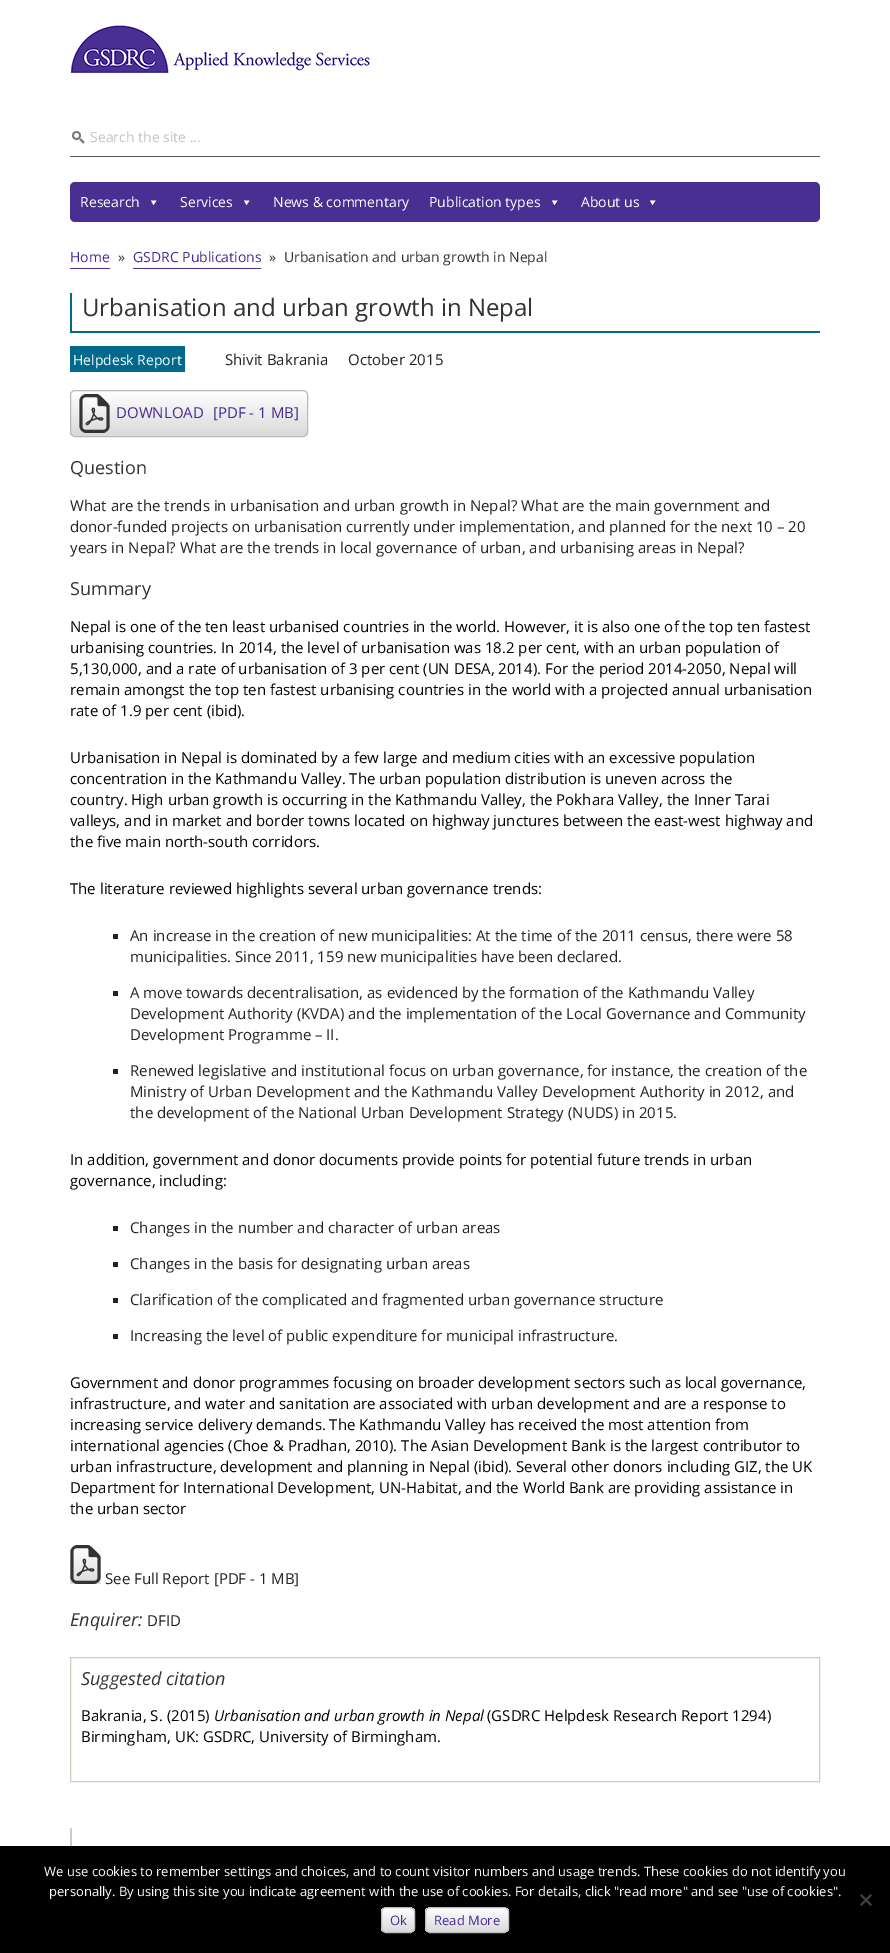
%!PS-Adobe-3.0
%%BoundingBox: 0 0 890 1953
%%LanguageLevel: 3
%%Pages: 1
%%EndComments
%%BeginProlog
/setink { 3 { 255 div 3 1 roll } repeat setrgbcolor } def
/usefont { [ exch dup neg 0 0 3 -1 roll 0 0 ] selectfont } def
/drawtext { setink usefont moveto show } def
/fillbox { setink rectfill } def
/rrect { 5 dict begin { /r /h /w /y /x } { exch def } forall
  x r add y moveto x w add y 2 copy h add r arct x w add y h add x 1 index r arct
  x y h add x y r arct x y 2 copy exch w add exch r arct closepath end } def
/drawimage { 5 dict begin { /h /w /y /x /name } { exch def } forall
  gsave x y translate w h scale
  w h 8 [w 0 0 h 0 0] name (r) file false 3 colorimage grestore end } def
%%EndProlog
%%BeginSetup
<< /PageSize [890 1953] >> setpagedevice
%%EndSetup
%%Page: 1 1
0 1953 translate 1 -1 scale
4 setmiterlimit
0 0 890 1953 255 255 255 fillbox
(assets/img1.rgb) 70 25 300 48 drawimage
(assets/img2.rgb) 72 131 13 13 drawimage
70 156 750 1 90 90 78 fillbox
(Search the site ...) 90 142 /OpenSans-Regular 14 195 195 195 drawtext
73 47 146 setink
70 182 750 40 5 rrect fill
(Research) 80 207 /OpenSans-Regular 14 255 255 255 drawtext
156.5 200.5 moveto 153.5 205 lineto 151 200.5 lineto closepath fill
(Services) 180 207 /OpenSans-Regular 14 255 255 255 drawtext
249.5 200.5 moveto 246.5 205 lineto 244 200.5 lineto closepath fill
(News & commentary) 273 207 /OpenSans-Regular 14 255 255 255 drawtext
(Publication types) 429 207 /OpenSans-Regular 14 255 255 255 drawtext
557.5 200.5 moveto 554.5 205 lineto 552 200.5 lineto closepath fill
(About us) 581 207 /OpenSans-Regular 14 255 255 255 drawtext
655.5 200.5 moveto 652.5 205 lineto 650 200.5 lineto closepath fill
(Home) 70 262 /OpenSans-Regular 14 73 42 148 drawtext
70 268 40 1 72 46 144 fillbox
(») 118 262 /OpenSans-Regular 14 51 51 51 drawtext
(GSDRC Publications) 133 262 /OpenSans-Regular 14 73 42 148 drawtext
133 268 128 1 72 46 144 fillbox
(») 269 262 /OpenSans-Regular 14 51 51 51 drawtext
(Urbanisation and urban growth in Nepal) 284 262 /OpenSans-Regular 14 51 51 51 drawtext
70 331 750 2 0 105 140 fillbox
70 293 2 40 0 105 140 fillbox
(Urbanisation and urban growth in Nepal) 82 316 /OpenSans-Regular 24 51 51 51 drawtext
70 346 115 26 0 105 140 fillbox
(Helpdesk Report) 73 365 /OpenSans-Regular 14 255 255 255 drawtext
(Shivit Bakrania) 225 365 /OpenSans-Regular 15 34 34 34 drawtext
(October 2015) 348 365 /OpenSans-Regular 15 34 34 34 drawtext
gsave
70 390 238 47 5 rrect clip newpath
gsave 70 391 moveto 308 391 lineto 308 436 lineto 70 436 lineto closepath clip newpath
<< /ShadingType 2 /ColorSpace /DeviceRGB /Coords [189 391 189 436] /Extend [true true] /Function << /FunctionType 2 /Domain [0 1] /C0 [1 1 1] /C1 [0.851 0.851 0.851] /N 1 >> >> shfill grestore
grestore
186 186 186 setink
70.5 390.5 237 46 4.5 rrect stroke
(assets/img3.rgb) 79 394 31 39 drawimage
(DOWNLOAD) 116 418 /OpenSans-Regular 15 73 42 148 drawtext
([PDF - 1 MB]) 213 418 /OpenSans-Regular 15 73 42 148 drawtext
(Question) 70 474 /OpenSans-Regular 18 51 51 51 drawtext
(What are the trends in urbanisation and urban growth in Nepal? What are the main government and) 70 511 /OpenSans-Regular 15 34 34 34 drawtext
(donor-funded projects on urbanisation currently under implementation, and planned for the next 10 – 20) 70 532 /OpenSans-Regular 15 34 34 34 drawtext
(years in Nepal? What are the trends in local governance of urban, and urbanising areas in Nepal?) 70 553 /OpenSans-Regular 15 34 34 34 drawtext
(Summary) 70 595 /OpenSans-Regular 18 51 51 51 drawtext
(Nepal is one of the ten least urbanised countries in the world. However, it is also one of the top ten fastest) 70 632 /OpenSans-Regular 15 0 0 0 drawtext
(urbanising countries. In 2014, the level of urbanisation was 18.2 per cent, with an urban population of) 70 653 /OpenSans-Regular 15 0 0 0 drawtext
(5,130,000, and a rate of urbanisation of 3 per cent \(UN DESA, 2014\). For the period 2014-2050, Nepal will) 70 674 /OpenSans-Regular 15 0 0 0 drawtext
(remain amongst the top ten fastest urbanising countries in the world with a projected annual urbanisation) 70 695 /OpenSans-Regular 15 0 0 0 drawtext
(rate of 1.9 per cent \(ibid\).) 70 716 /OpenSans-Regular 15 0 0 0 drawtext
(Urbanisation in Nepal is dominated by a few large and medium cities with an excessive population) 70 763 /OpenSans-Regular 15 0 0 0 drawtext
(concentration in the Kathmandu Valley. The urban population distribution is uneven across the) 70 784 /OpenSans-Regular 15 0 0 0 drawtext
(country. High urban growth is occurring in the Kathmandu Valley, the Pokhara Valley, the Inner Tarai) 70 805 /OpenSans-Regular 15 0 0 0 drawtext
(valleys, and in market and border towns located on highway junctures between the east-west highway and) 70 826 /OpenSans-Regular 15 0 0 0 drawtext
(the five main north-south corridors.) 70 847 /OpenSans-Regular 15 0 0 0 drawtext
(The literature reviewed highlights several urban governance trends:) 70 894 /OpenSans-Regular 15 0 0 0 drawtext
113 934 5 5 34 34 34 fillbox
(An increase in the creation of new municipalities: At the time of the 2011 census, there were 58) 130 941 /OpenSans-Regular 15 34 34 34 drawtext
(municipalities. Since 2011, 159 new municipalities have been declared.) 130 962 /OpenSans-Regular 15 34 34 34 drawtext
113 991 5 5 34 34 34 fillbox
(A move towards decentralisation, as evidenced by the formation of the Kathmandu Valley) 130 998 /OpenSans-Regular 15 34 34 34 drawtext
(Development Authority \(KVDA\) and the implementation of the Local Governance and Community) 130 1019 /OpenSans-Regular 15 34 34 34 drawtext
(Development Programme – II.) 130 1040 /OpenSans-Regular 15 34 34 34 drawtext
113 1069 5 5 34 34 34 fillbox
(Renewed legislative and institutional focus on urban governance, for instance, the creation of the) 130 1076 /OpenSans-Regular 15 34 34 34 drawtext
(Ministry of Urban Development and the Kathmandu Valley Development Authority in 2012, and) 130 1097 /OpenSans-Regular 15 34 34 34 drawtext
(the development of the National Urban Development Strategy \(NUDS\) in 2015.) 130 1118 /OpenSans-Regular 15 34 34 34 drawtext
(In addition, government and donor documents provide points for potential future trends in urban) 70 1165 /OpenSans-Regular 15 0 0 0 drawtext
(governance, including:) 70 1186 /OpenSans-Regular 15 0 0 0 drawtext
113 1226 5 5 34 34 34 fillbox
(Changes in the number and character of urban areas) 130 1233 /OpenSans-Regular 15 34 34 34 drawtext
113 1262 5 5 34 34 34 fillbox
(Changes in the basis for designating urban areas) 130 1269 /OpenSans-Regular 15 34 34 34 drawtext
113 1298 5 5 34 34 34 fillbox
(Clarification of the complicated and fragmented urban governance structure) 130 1305 /OpenSans-Regular 15 34 34 34 drawtext
113 1334 5 5 34 34 34 fillbox
(Increasing the level of public expenditure for municipal infrastructure.) 130 1341 /OpenSans-Regular 15 34 34 34 drawtext
(Government and donor programmes focusing on broader development sectors such as local governance,) 70 1388 /OpenSans-Regular 15 0 0 0 drawtext
(infrastructure, and water and sanitation are associated with urban development and are a response to) 70 1409 /OpenSans-Regular 15 0 0 0 drawtext
(increasing service delivery demands. The Kathmandu Valley has received the most attention from) 70 1430 /OpenSans-Regular 15 0 0 0 drawtext
(international agencies \(Choe & Pradhan, 2010\). The Asian Development Bank is the largest contributor to) 70 1451 /OpenSans-Regular 15 0 0 0 drawtext
(urban infrastructure, development and planning in Nepal \(ibid\). Several other donors including GIZ, the UK) 70 1472 /OpenSans-Regular 15 0 0 0 drawtext
(Department for International Development, UN-Habitat, and the World Bank are providing assistance in) 70 1493 /OpenSans-Regular 15 0 0 0 drawtext
(the urban sector) 70 1514 /OpenSans-Regular 15 0 0 0 drawtext
(assets/img3.rgb) 70 1545 31 39 drawimage
(See Full Report [PDF - 1 MB]) 105 1584 /OpenSans-Regular 15 34 34 34 drawtext
(Enquirer:) 70 1626 /OpenSans-Italic 18 51 51 51 drawtext
(DFID) 147 1626 /OpenSans-Regular 15 34 34 34 drawtext
206 206 191 setink
70.5 1657.5 749 124 rectstroke
(Suggested citation) 81 1685 /OpenSans-Italic 18 51 51 51 drawtext
(Bakrania, S. \(2015\)) 81 1721 /OpenSans-Regular 15 0 0 0 drawtext
(Urbanisation and urban growth in Nepal) 214 1721 /OpenSans-Italic 15 0 0 0 drawtext
(\(GSDRC Helpdesk Research Report 1294\)) 487 1721 /OpenSans-Regular 15 0 0 0 drawtext
(Birmingham, UK: GSDRC, University of Birmingham.) 81 1742 /OpenSans-Regular 15 0 0 0 drawtext
70 1828 2 18 206 206 191 fillbox
0 1846 890 107 0 0 0 fillbox
(We use cookies to remember settings and choices, and to count visitor numbers and usage trends. These cookies do not identify you) 44 1876 /OpenSans-Regular 13 255 255 255 drawtext
(personally. By using this site you indicate agreement with the use of cookies. For details, click "read more" and see "use of cookies".) 49 1896 /OpenSans-Regular 13 255 255 255 drawtext
64 64 64 setink
870.5 1894 moveto 872 1895.5 lineto 861.5 1906 lineto 860 1904.5 lineto closepath fill
860 1895.5 moveto 861.5 1894 lineto 872 1904.5 lineto 870.5 1906 lineto closepath fill
gsave
381 1907 34 26 5 rrect clip newpath
gsave 381 1908 moveto 415 1908 lineto 415 1932 lineto 381 1932 lineto closepath clip newpath
<< /ShadingType 2 /ColorSpace /DeviceRGB /Coords [398 1908 398 1932] /Extend [true true] /Function << /FunctionType 2 /Domain [0 1] /C0 [1 1 1] /C1 [0.851 0.851 0.851] /N 1 >> >> shfill grestore
grestore
186 186 186 setink
381.5 1907.5 33 25 4.5 rrect stroke
(Ok) 390 1925 /OpenSans-Regular 13 73 42 148 drawtext
gsave
425 1907 84 26 5 rrect clip newpath
gsave 425 1908 moveto 509 1908 lineto 509 1932 lineto 425 1932 lineto closepath clip newpath
<< /ShadingType 2 /ColorSpace /DeviceRGB /Coords [467 1908 467 1932] /Extend [true true] /Function << /FunctionType 2 /Domain [0 1] /C0 [1 1 1] /C1 [0.851 0.851 0.851] /N 1 >> >> shfill grestore
grestore
186 186 186 setink
425.5 1907.5 83 25 4.5 rrect stroke
(Read More) 434 1925 /OpenSans-Regular 13 73 42 148 drawtext
showpage
%%EOF
